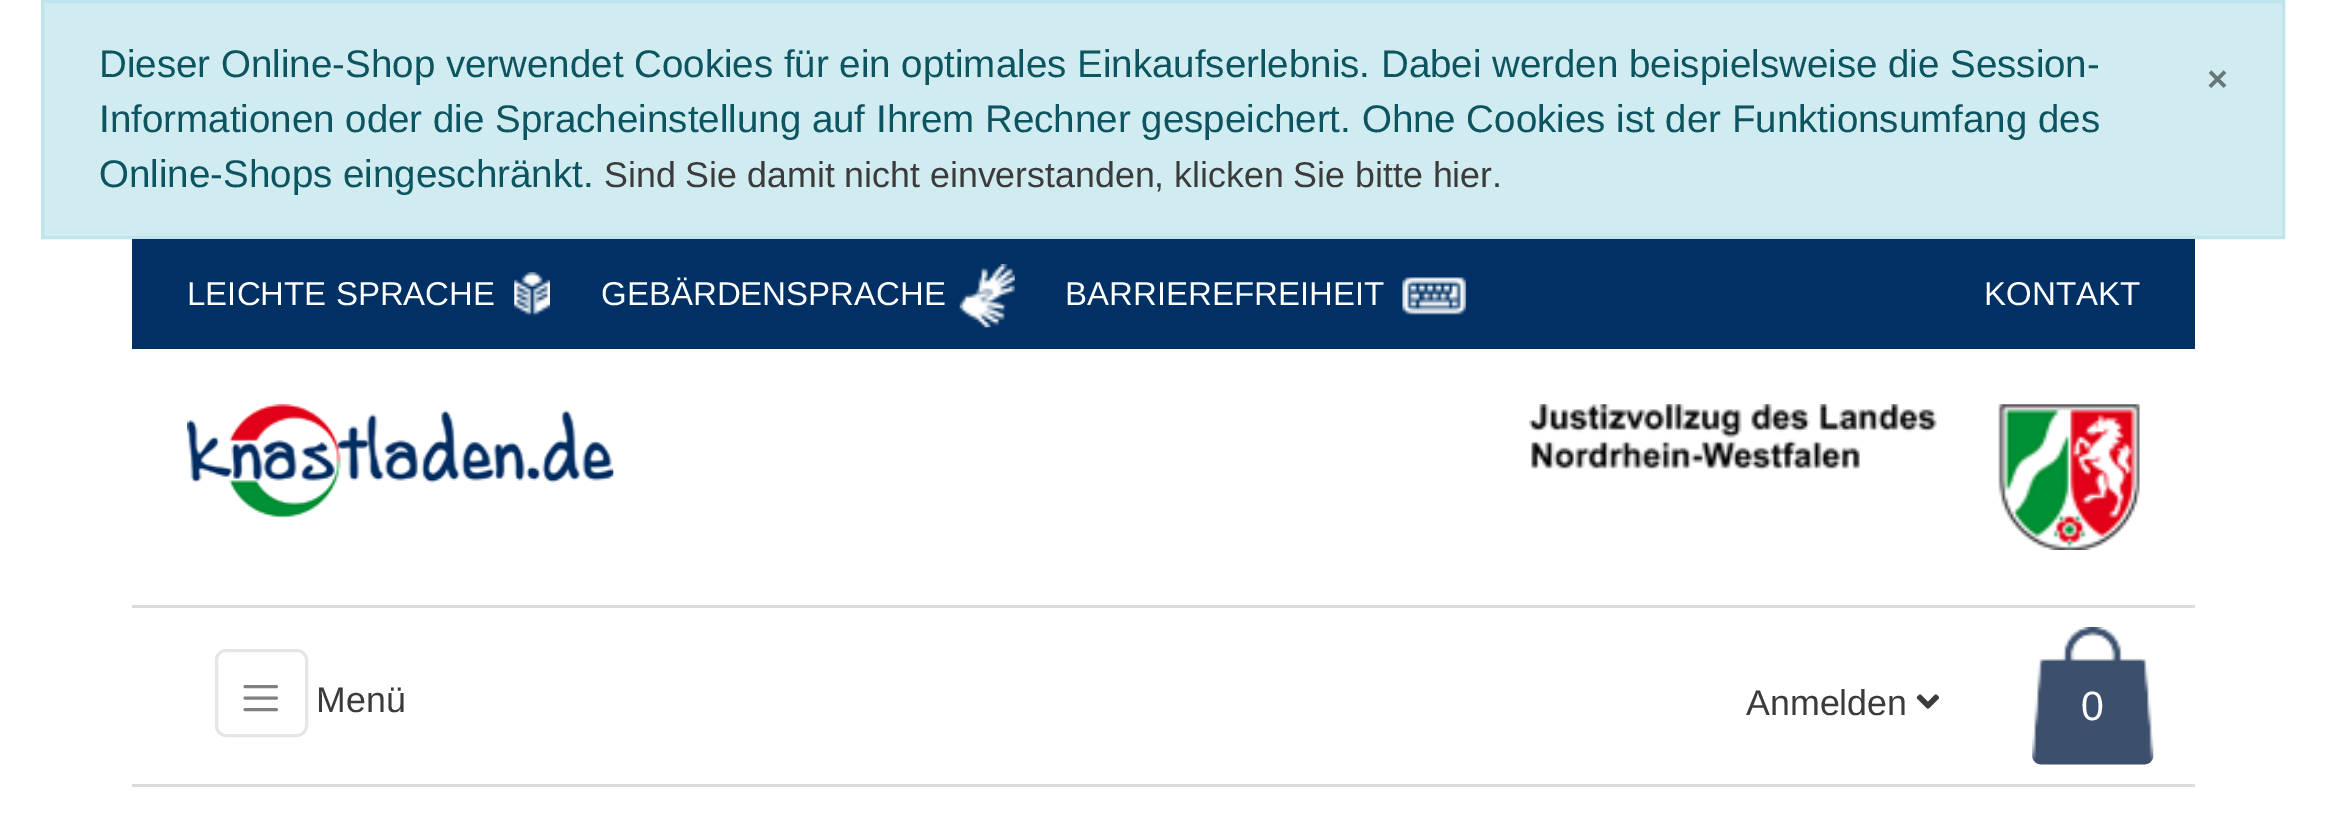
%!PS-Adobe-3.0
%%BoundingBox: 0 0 2325 837
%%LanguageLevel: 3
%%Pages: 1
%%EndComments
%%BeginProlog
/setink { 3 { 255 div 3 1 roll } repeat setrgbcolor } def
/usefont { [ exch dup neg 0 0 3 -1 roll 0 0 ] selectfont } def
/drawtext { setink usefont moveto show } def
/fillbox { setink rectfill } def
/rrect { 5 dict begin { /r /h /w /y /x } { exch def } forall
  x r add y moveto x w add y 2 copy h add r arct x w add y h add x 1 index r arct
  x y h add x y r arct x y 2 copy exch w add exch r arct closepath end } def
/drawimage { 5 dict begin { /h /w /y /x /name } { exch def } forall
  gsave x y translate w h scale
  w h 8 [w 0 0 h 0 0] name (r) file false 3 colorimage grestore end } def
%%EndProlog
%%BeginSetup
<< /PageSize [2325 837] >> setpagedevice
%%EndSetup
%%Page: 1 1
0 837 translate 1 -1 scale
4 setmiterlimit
0 0 2325 837 255 255 255 fillbox
209 236 241 setink
42.5 1.5 moveto 2283.5 1.5 lineto 2283.5 237.5 lineto 42.5 237.5 lineto closepath gsave fill grestore
190 229 235 setink
3 setlinewidth
stroke
(Dieser Online-Shop verwendet Cookies für ein optimales Einkaufserlebnis. Dabei werden beispielsweise die Session-) 99 77 /LiberationSans-Regular 38.5 12 84 96 drawtext
(×) 2207 91 /LiberationSans-Bold 35.75 105 118 121 drawtext
(Informationen oder die Spracheinstellung auf Ihrem Rechner gespeichert. Ohne Cookies ist der Funktionsumfang des) 99 132 /LiberationSans-Regular 38.5 12 84 96 drawtext
(Online-Shops eingeschränkt.) 99 187 /LiberationSans-Regular 38.5 12 84 96 drawtext
(Sind Sie damit nicht einverstanden, klicken Sie bitte hier.) 604 187 /LiberationSans-Regular 35.75 59 59 59 drawtext
132 239 2063 110 0 48 100 fillbox
(LEICHTE SPRACHE) 187 305 /LiberationSans-Regular 33 255 255 255 drawtext
(assets/img1.rgb) 514 272 36 44 drawimage
(GEBÄRDENSPRACHE) 601 305 /LiberationSans-Regular 33 255 255 255 drawtext
(assets/img2.rgb) 959 264 56 64 drawimage
(BARRIEREFREIHEIT) 1065 305 /LiberationSans-Regular 33 255 255 255 drawtext
(assets/img3.rgb) 1402 277 64 38 drawimage
(KONTAKT) 1984 305 /LiberationSans-Regular 33 255 255 255 drawtext
(assets/img4.rgb) 187 404 427 115 drawimage
(assets/img5.rgb) 1529 404 611 146 drawimage
132 605 2063 3 220 220 220 fillbox
132 784 2063 3 220 220 220 fillbox
230 230 230 setink
216.5 650.5 90 85 9.5 rrect stroke
128 128 128 setink
2.9 setlinewidth
1 setlinecap
245 686.5 moveto 276.5 686.5 lineto 245 698 moveto 276.5 698 lineto 245 709.5 moveto 276.5 709.5 lineto stroke
(Menü) 316 712 /LiberationSans-Regular 35.75 59 59 59 drawtext
(Anmelden) 1746 715 /LiberationSans-Regular 35.75 59 59 59 drawtext
(assets/img6.rgb) 1916 694 24 15 drawimage
(assets/img7.rgb) 2032 627 122 138 drawimage
(0) 2081 720 /LiberationSans-Regular 41 255 255 255 drawtext
showpage
%%EOF
